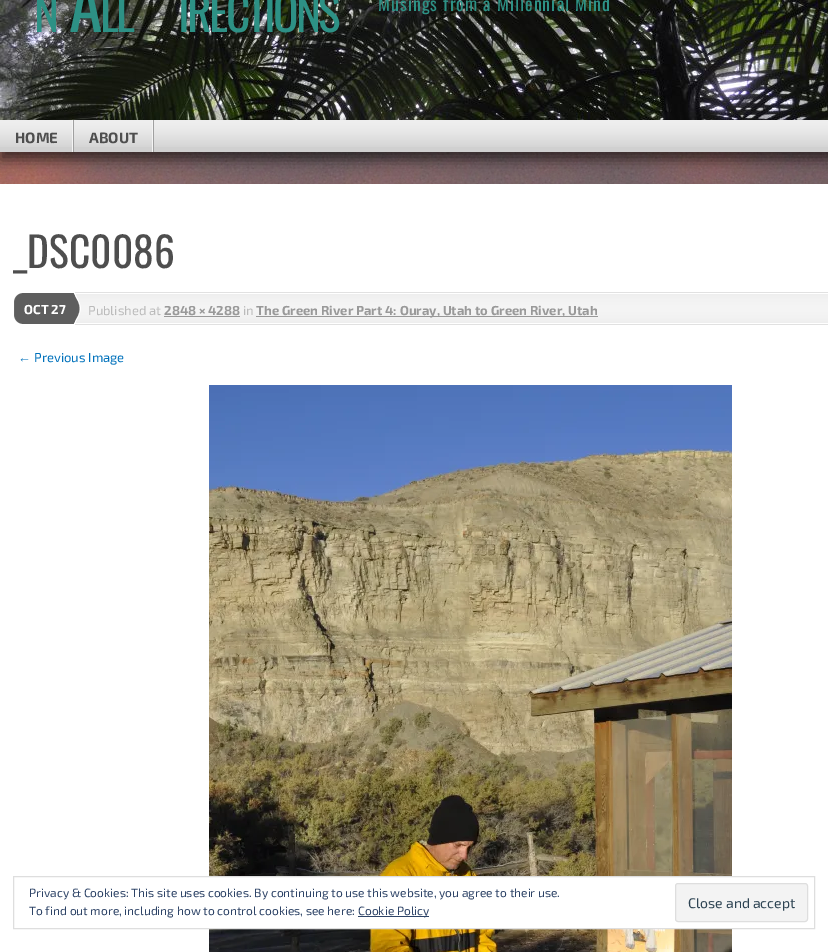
%!PS-Adobe-3.0
%%BoundingBox: 0 0 828 952
%%LanguageLevel: 3
%%Pages: 1
%%EndComments
%%BeginProlog
/setink { 3 { 255 div 3 1 roll } repeat setrgbcolor } def
/usefont { [ exch dup neg 0 0 3 -1 roll 0 0 ] selectfont } def
/drawtext { setink usefont moveto show } def
/fillbox { setink rectfill } def
/setalpha { dup .setfillconstantalpha .setstrokeconstantalpha } def
/rrect { 5 dict begin { /r /h /w /y /x } { exch def } forall
  x r add y moveto x w add y 2 copy h add r arct x w add y h add x 1 index r arct
  x y h add x y r arct x y 2 copy exch w add exch r arct closepath end } def
/softshadow { 12 dict begin { /a /b /q /h /w /y /x } { exch def } forall gsave /was 0 def
  9 -2 -9 { dup b mul 4 div /e exch def 1 sub .425 mul 2.718 exch exp 1 add a .99 .min exch div /now exch def
    1 1 now sub 1 was sub div sub setalpha /was now def
    w h .min e 2 mul add 0 gt { x e sub y e sub w e 2 mul add h e 2 mul add
      q e add b .6 mul add w h .min 2 div e add .min 0 .max rrect fill } if } for grestore end } def
/drawimage { 5 dict begin { /h /w /y /x /name } { exch def } forall
  gsave x y translate w h scale
  w h 8 [w 0 0 h 0 0] name (r) file false 3 colorimage grestore end } def
%%EndProlog
%%BeginSetup
<< /PageSize [828 952] /PageUsesTransparency true >> setpagedevice
%%EndSetup
%%Page: 1 1
0 .pushpdf14devicefilter
0 952 translate 1 -1 scale
4 setmiterlimit
0 0 828 952 255 255 255 fillbox
(assets/img1.rgb) 0 152 828 32 drawimage
(assets/img2.rgb) 0 0 828 120 drawimage
/Oswald-Regular 47.5 usefont
45 145 133 setink
34 32 moveto -2.75 0 (N) ashow
/Oswald-Regular 68 usefont
69 32 moveto -2.75 0 (A) ashow
/Oswald-Regular 47.5 usefont
100 32 moveto -2.75 0 (LL) ashow
178 32 moveto -2.75 0 (IRECTIONS) ashow
/Oswald-Regular 18 usefont
378 11 moveto 1 0 (Musings from a Millennial Mind) ashow
0 0 0 setink
0 128 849 32 0 7 0.6 softshadow
0 147 828 5 208 208 208 fillbox
(assets/img3.rgb) 0 120 828 27 drawimage
(assets/img4.rgb) 72 120 2 32 drawimage
(HOME) 15 143 /Exo2-Bold 15 78 78 78 drawtext
(assets/img4.rgb) 152 120 2 32 drawimage
(ABOUT) 89 143 /Exo2-Bold 15 78 78 78 drawtext
(_DSC0086) 13 268 /Oswald-Regular 41.5 78 78 78 drawtext
(assets/img5.rgb) 14 293 11 31 drawimage
(assets/img6.rgb) 25 292 57 33 drawimage
(OCT 27) 24 314 /Exo2-Bold 13 255 255 255 drawtext
(assets/img7.rgb) 82 292 746 33 drawimage
(Published at) 88 315 /Exo2-Regular 13 187 187 187 drawtext
(2848 × 4288) 164 315 /Exo2-Bold 13 153 153 153 drawtext
164 316 76 1 153 153 153 fillbox
(in) 243 315 /Exo2-Regular 13 187 187 187 drawtext
256 316 342 1 153 153 153 fillbox
(The Green River Part 4: Ouray, Utah to Green River, Utah) 256 315 /Exo2-Bold 13 153 153 153 drawtext
(←) 18 362 /LiberationSans-Regular 13 0 113 187 drawtext
(Previous Image) 34 362 /Exo2-Regular 13 0 113 187 drawtext
(assets/img8.rgb) 209 385 523 567 drawimage
209 877 523 51 255 255 255 fillbox
222 222 222 setink
13.5 876.5 801 52 rectstroke
(Privacy & Cookies: This site uses cookies. By continuing to use this website, you agree to their use.) 29 897 /Exo2-Regular 12 46 68 103 drawtext
(To find out more, including how to control cookies, see here:) 29 915 /Exo2-Regular 12 46 68 103 drawtext
358 916 71 1 46 68 103 fillbox
(Cookie Policy) 358 915 /Exo2-Regular 12 46 68 103 drawtext
243 243 243 setink
675.5 883.5 132 38 2.5 rrect gsave fill grestore
222 222 222 setink
stroke
(Close and accept) 688 908 /Exo2-Regular 14 46 68 83 drawtext
.poppdf14devicefilter showpage
%%EOF
